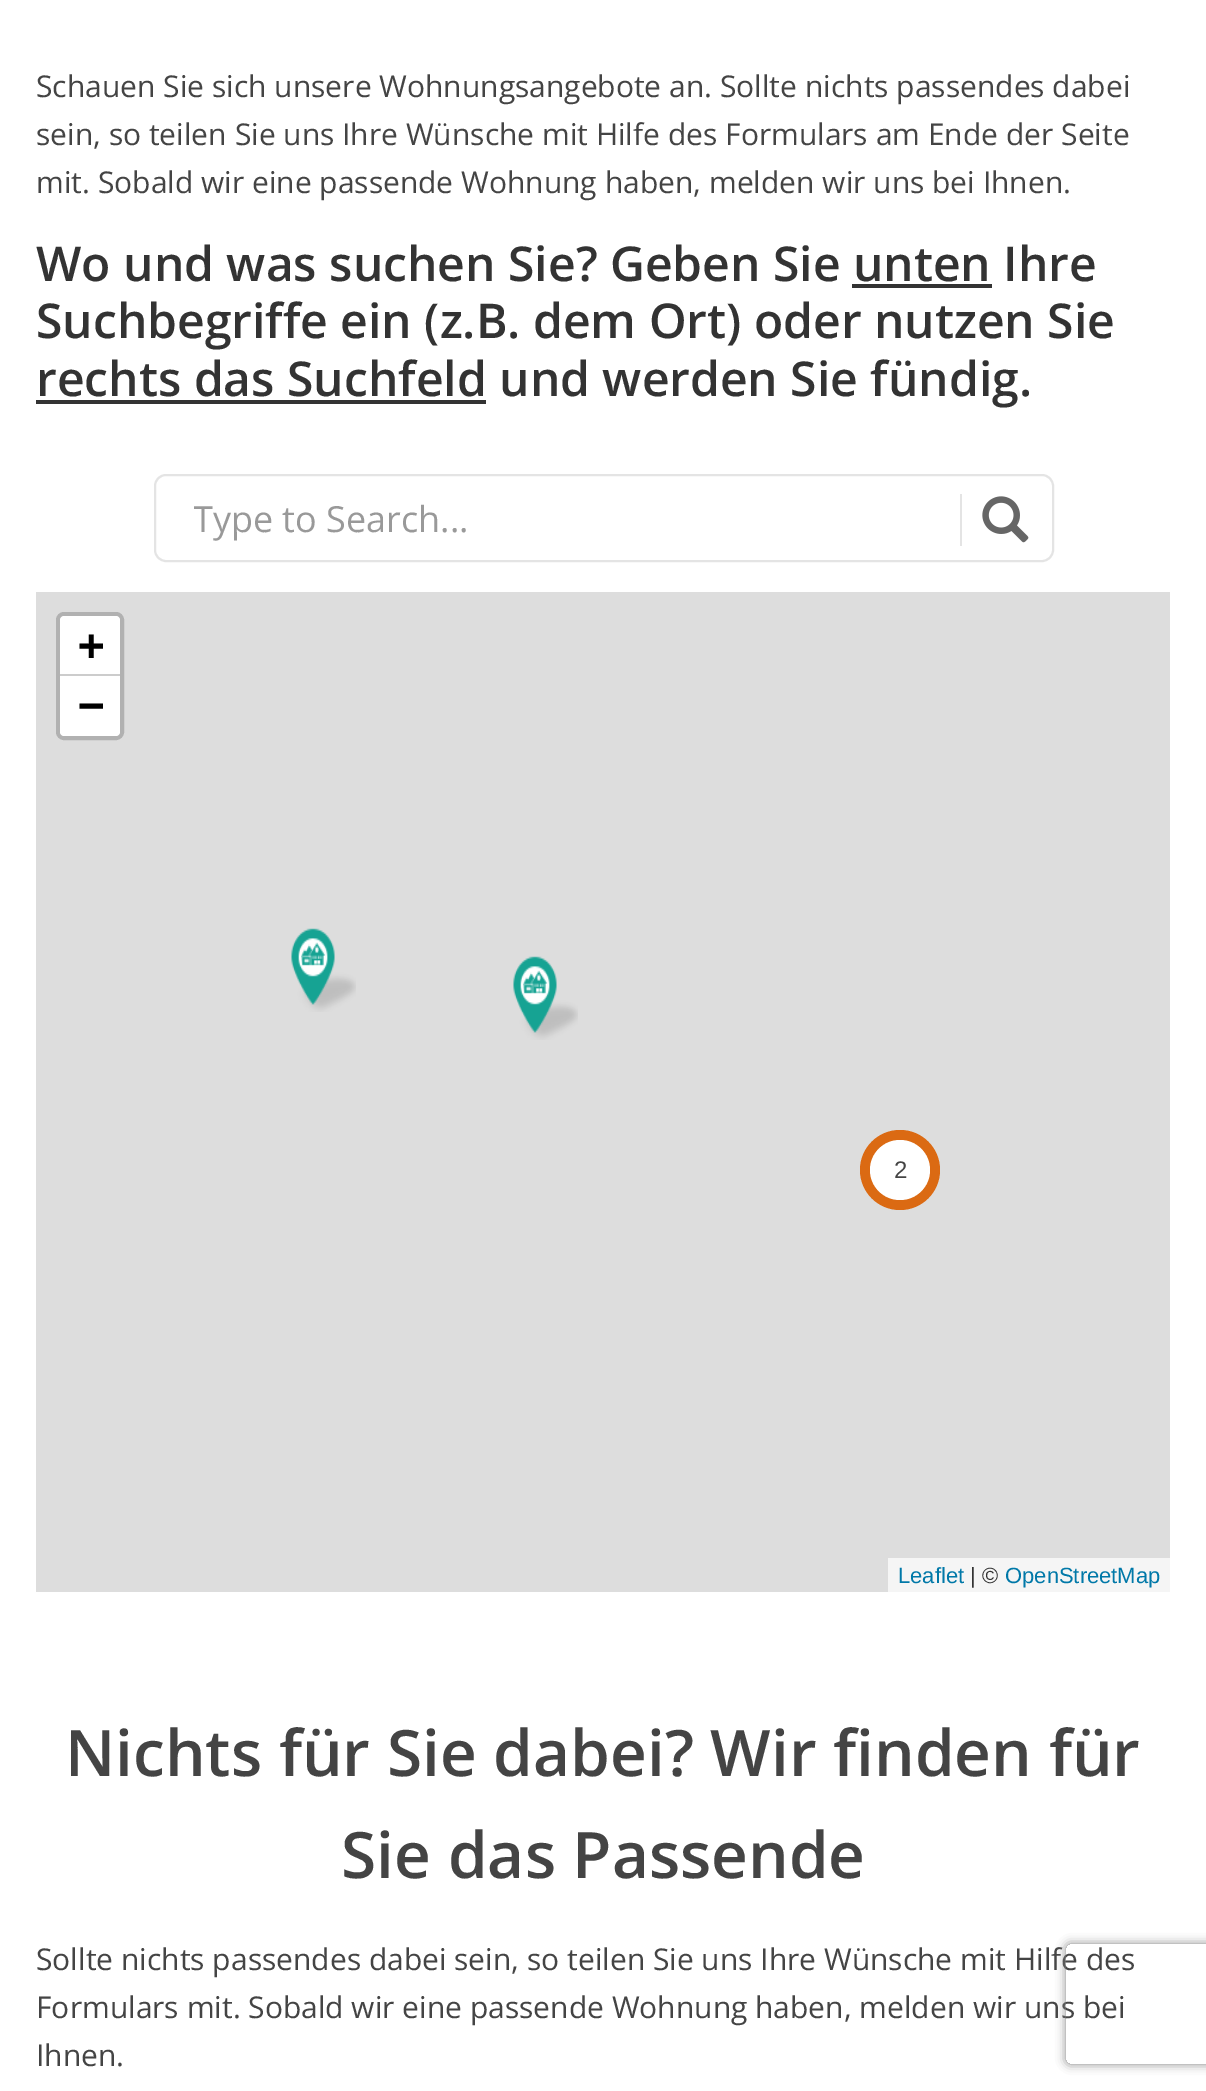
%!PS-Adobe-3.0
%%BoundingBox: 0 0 1206 2091
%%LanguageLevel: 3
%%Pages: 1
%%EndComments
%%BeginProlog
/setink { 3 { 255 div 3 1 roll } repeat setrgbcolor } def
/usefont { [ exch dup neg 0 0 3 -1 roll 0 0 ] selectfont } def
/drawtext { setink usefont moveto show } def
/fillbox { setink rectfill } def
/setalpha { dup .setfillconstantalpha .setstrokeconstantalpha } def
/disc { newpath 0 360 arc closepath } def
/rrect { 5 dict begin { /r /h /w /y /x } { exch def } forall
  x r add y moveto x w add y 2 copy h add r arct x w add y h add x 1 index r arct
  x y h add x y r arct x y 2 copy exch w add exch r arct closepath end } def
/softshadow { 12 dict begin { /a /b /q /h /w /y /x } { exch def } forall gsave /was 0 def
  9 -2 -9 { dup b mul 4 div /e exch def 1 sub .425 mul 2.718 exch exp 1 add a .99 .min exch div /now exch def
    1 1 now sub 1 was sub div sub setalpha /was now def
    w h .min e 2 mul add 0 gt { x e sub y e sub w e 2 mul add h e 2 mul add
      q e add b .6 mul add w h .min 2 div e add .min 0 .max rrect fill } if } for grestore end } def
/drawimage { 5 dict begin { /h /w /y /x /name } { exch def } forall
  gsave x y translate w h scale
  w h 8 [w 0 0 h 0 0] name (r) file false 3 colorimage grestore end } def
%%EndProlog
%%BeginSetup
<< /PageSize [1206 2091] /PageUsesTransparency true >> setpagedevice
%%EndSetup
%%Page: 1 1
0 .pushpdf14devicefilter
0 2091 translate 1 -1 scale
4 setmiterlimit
0 0 1206 2091 255 255 255 fillbox
(Schauen Sie sich unsere Wohnungsangebote an. Sollte nichts passendes dabei) 36 97 /OpenSans-Regular 30 68 68 68 drawtext
(sein, so teilen Sie uns Ihre Wünsche mit Hilfe des Formulars am Ende der Seite) 36 145 /OpenSans-Regular 30 68 68 68 drawtext
(mit. Sobald wir eine passende Wohnung haben, melden wir uns bei Ihnen.) 36 193 /OpenSans-Regular 30 68 68 68 drawtext
(Wo und was suchen Sie? Geben Sie unten Ihre) 36 281 /OpenSans-SemiBold 48 51 51 51 drawtext
852 284 140 4 51 51 51 fillbox
(Suchbegriffe ein \(z.B. dem Ort\) oder nutzen Sie) 36 338 /OpenSans-SemiBold 48 51 51 51 drawtext
36 400 450 4 51 51 51 fillbox
(rechts das Suchfeld und werden Sie fündig.) 36 396 /OpenSans-SemiBold 48 51 51 51 drawtext
228 228 228 setink
2 setlinewidth
155 475 898 86 11 rrect stroke
gsave
194 494 734 48 rectclip
(Type to Search...) 193 532 /OpenSans-Regular 36 153 153 153 drawtext
grestore
960 494 2 52 228 228 228 fillbox
(assets/img1.rgb) 982 496 47 47 drawimage
36 592 1134 1000 221 221 221 fillbox
177 177 177 setink
4 setlinewidth
58 614 64 124 6 rrect stroke
255 255 255 setink
64 616 moveto 116 616 lineto 118 616 120 618 120 620 curveto 120 676 lineto 60 676 lineto 60 620 lineto 60 618 62 616 64 616 curveto closepath fill
60 674 60 2 204 204 204 fillbox
(+) 78 660 /DejaVuSansMono-Bold 44 0 0 0 drawtext
255 255 255 setink
60 676 moveto 120 676 lineto 120 732 lineto 120 734 118 736 116 736 curveto 64 736 lineto 62 736 60 734 60 732 curveto closepath fill
(−) 78 720 /DejaVuSansMono-Bold 44 0 0 0 drawtext
888 1558 282 34 245 245 245 fillbox
(Leaflet) 898 1583 /LiberationSans-Regular 22 0 120 168 drawtext
(| ©) 970 1583 /LiberationSans-Regular 22 51 51 51 drawtext
(OpenStreetMap) 1005 1583 /LiberationSans-Regular 22 0 120 168 drawtext
(assets/img2.rgb) 291 928 65 84 drawimage
(assets/img2.rgb) 513 956 65 84 drawimage
219 106 19 setink
900 1170 40 disc fill
255 255 255 setink
900 1170 30 disc fill
(2) 894 1178 /LiberationSans-Regular 24 68 68 68 drawtext
(Nichts für Sie dabei? Wir finden für) 65 1776 /OpenSans-SemiBold 64 68 68 68 drawtext
(Sie das Passende) 341 1878 /OpenSans-SemiBold 64 68 68 68 drawtext
(Sollte nichts passendes dabei sein, so teilen Sie uns Ihre Wünsche mit Hilfe des) 36 1970 /OpenSans-Regular 30 68 68 68 drawtext
(Formulars mit. Sobald wir eine passende Wohnung haben, melden wir uns bei) 36 2018 /OpenSans-Regular 30 68 68 68 drawtext
(Ihnen.) 36 2066 /OpenSans-Regular 30 68 68 68 drawtext
gsave
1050 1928 moveto 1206 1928 lineto 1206 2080 lineto 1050 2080 lineto closepath 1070 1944 moveto 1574 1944 lineto 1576 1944 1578 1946 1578 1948 curveto 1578 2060 lineto 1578 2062 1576 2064 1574 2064 curveto 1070 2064 lineto 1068 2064 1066 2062 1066 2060 curveto 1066 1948 lineto 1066 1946 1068 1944 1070 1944 curveto closepath eoclip newpath
128 128 128 setink
1066 1944 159 120 4 5 1 softshadow
grestore
.poppdf14devicefilter showpage
%%EOF
